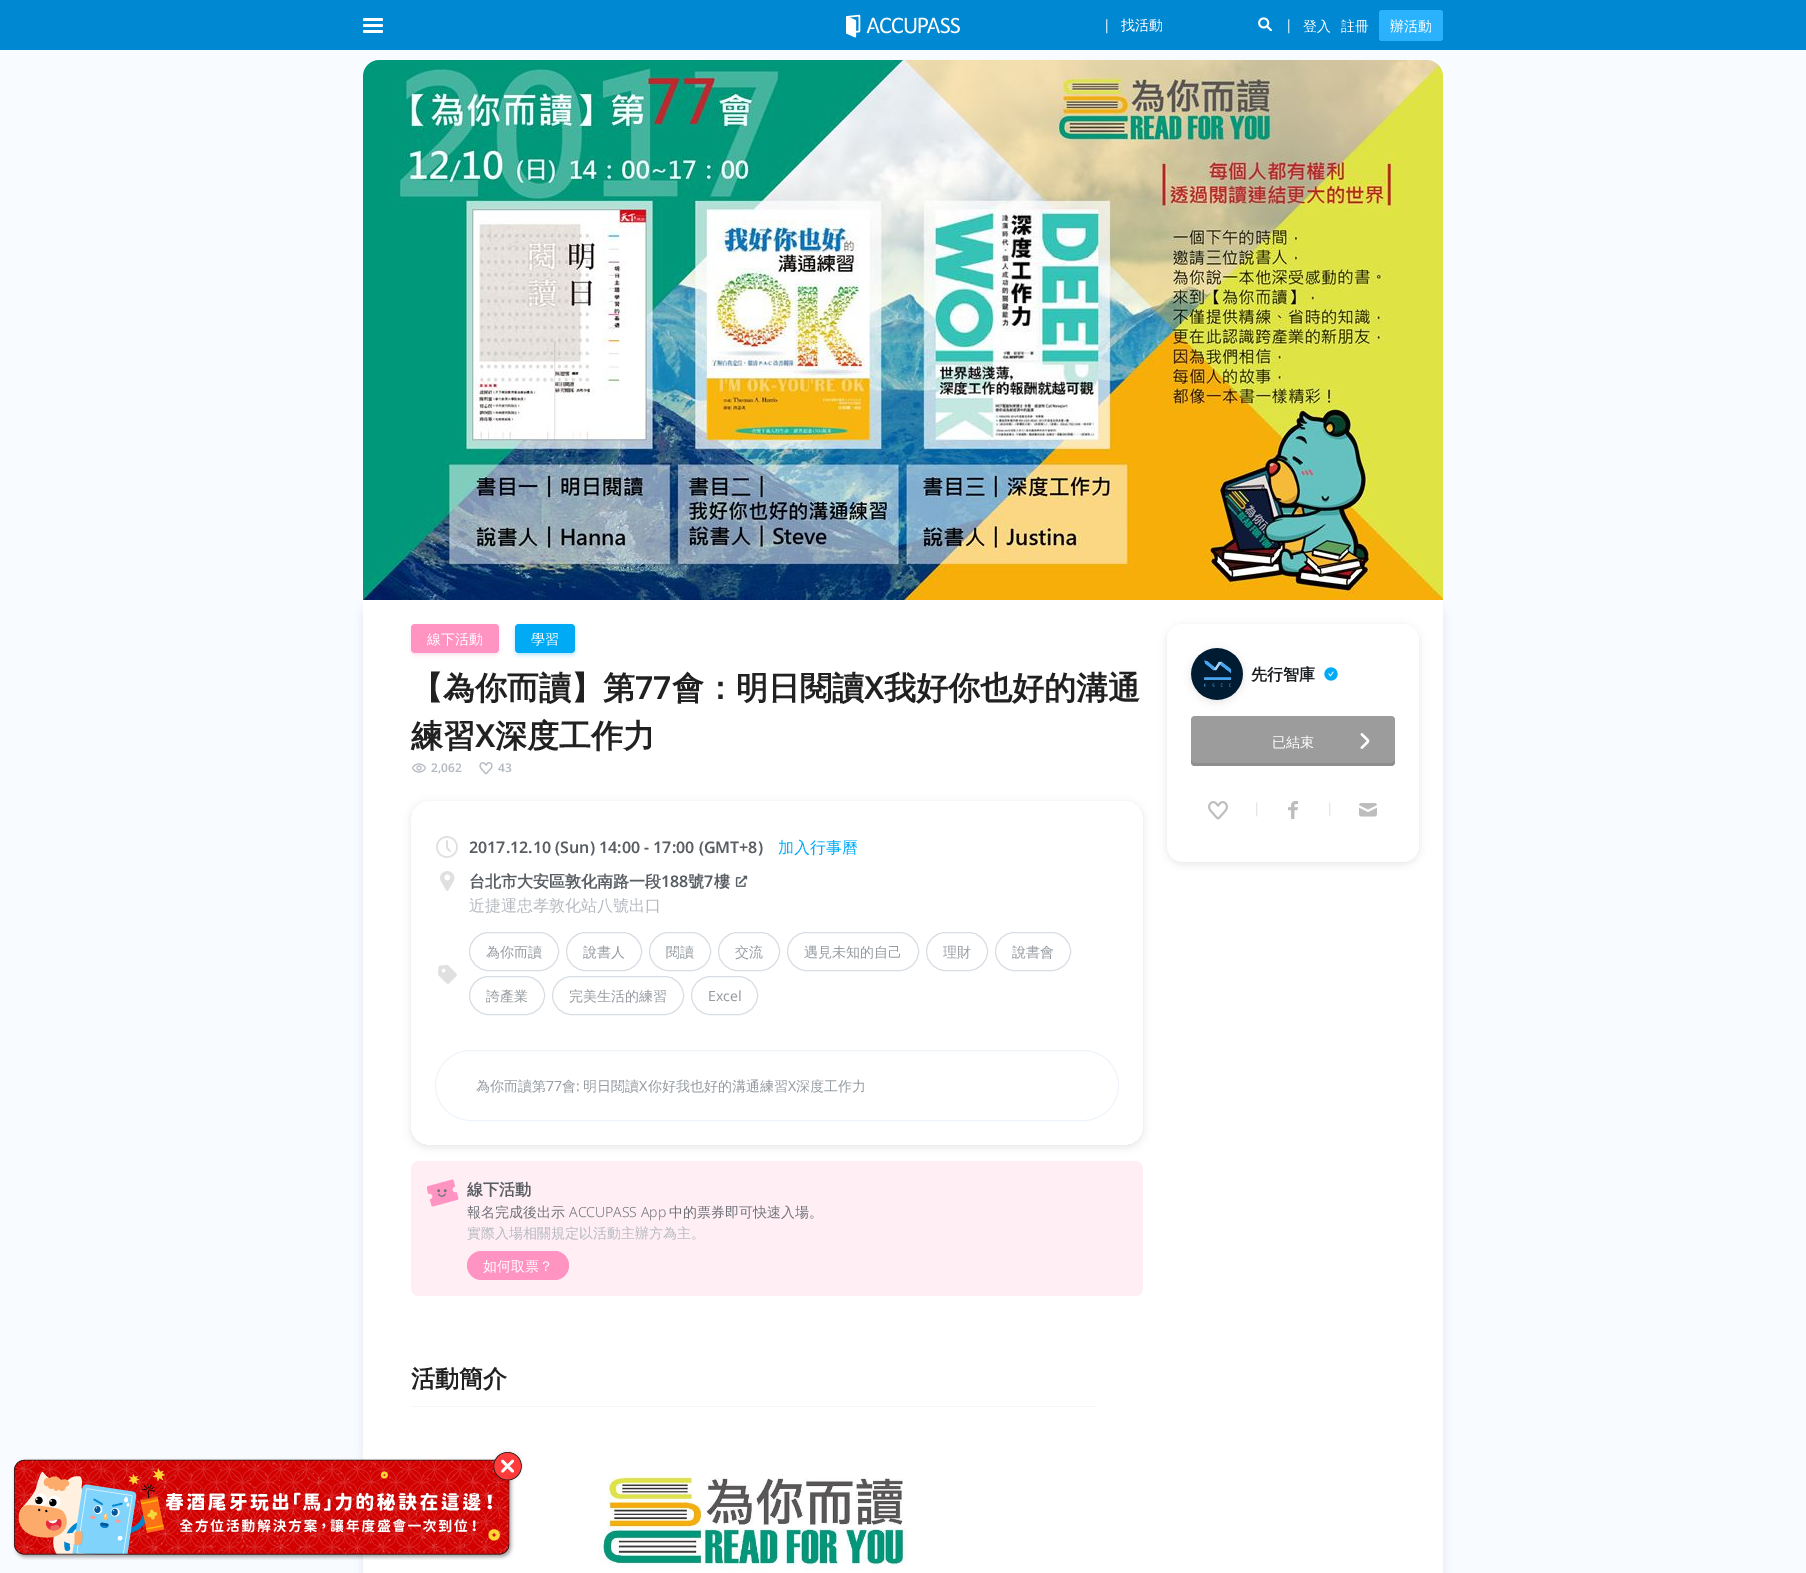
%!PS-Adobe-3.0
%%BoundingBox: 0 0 1806 1573
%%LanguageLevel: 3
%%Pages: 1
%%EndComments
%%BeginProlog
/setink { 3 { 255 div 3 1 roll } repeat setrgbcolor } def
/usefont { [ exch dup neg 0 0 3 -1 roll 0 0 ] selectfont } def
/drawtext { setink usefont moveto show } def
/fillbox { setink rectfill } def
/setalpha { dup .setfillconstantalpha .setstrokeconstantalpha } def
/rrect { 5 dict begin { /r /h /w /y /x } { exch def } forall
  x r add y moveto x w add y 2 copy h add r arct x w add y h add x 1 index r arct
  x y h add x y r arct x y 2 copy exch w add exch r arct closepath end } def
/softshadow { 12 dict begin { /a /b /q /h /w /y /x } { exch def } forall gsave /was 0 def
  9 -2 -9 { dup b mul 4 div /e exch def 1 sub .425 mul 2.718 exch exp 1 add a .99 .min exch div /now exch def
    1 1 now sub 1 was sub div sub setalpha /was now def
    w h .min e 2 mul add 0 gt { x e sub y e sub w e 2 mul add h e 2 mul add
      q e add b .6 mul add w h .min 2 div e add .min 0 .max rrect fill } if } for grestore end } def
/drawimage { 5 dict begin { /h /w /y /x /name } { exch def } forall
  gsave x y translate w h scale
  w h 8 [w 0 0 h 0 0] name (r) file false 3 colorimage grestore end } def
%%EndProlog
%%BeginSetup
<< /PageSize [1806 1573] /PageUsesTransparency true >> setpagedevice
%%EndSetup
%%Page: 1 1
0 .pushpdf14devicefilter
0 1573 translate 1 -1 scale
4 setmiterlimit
0 0 1806 1573 248 251 255 fillbox
0 0 1806 50 0 136 210 fillbox
255 255 255 setink
363 18 20 3 1.5 rrect fill
363 24 20 3 1.5 rrect fill
363 30 20 3 1.5 rrect fill
(assets/img1.rgb) 846 14 114 24 drawimage
(|) 1103 30 /NotoSans-Regular 14 255 255 255 drawtext
(找活動) 1121 30 /WenQuanYiZenHei-Medium 14 255 255 255 drawtext
(assets/img2.rgb) 1258 17 14 14 drawimage
(|) 1285 30 /NotoSans-Regular 14 255 255 255 drawtext
(登入) 1303 31 /WenQuanYiZenHei-Medium 14 255 255 255 drawtext
(註冊) 1341 31 /WenQuanYiZenHei-Medium 14 255 255 255 drawtext
42 179 252 setink
1379 10 64 31 3 rrect fill
(辦活動) 1390 31 /WenQuanYiZenHei-Medium 14 255 255 255 drawtext
107 107 107 setink
363 602 1080 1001 16 4.5 0.14 softshadow
255 255 255 setink
379 60 moveto 1427 60 lineto 1436 60 1443 67 1443 76 curveto 1443 600 lineto 363 600 lineto 363 76 lineto 363 67 370 60 379 60 curveto closepath fill
(assets/img3.rgb) 363 60 1080 540 drawimage
363 600 1080 973 255 255 255 fillbox
255 147 194 setink
411 626 88 29 4 2 0.3 softshadow
411 624 88 29 4 rrect fill
(線下活動) 427 644 /WenQuanYiZenHei-Medium 14 255 255 255 drawtext
0 170 245 setink
515 626 60 29 4 2 0.3 softshadow
515 624 60 29 4 rrect fill
(學習) 531 644 /WenQuanYiZenHei-Medium 14 255 255 255 drawtext
(【為你而讀】第) 411 699 /WenQuanYiZenHei-Bold 32 33 33 33 drawtext
(77) 635 699 /NotoSans-SemiBold 32 33 33 33 drawtext
(會：明日閱讀) 672 699 /WenQuanYiZenHei-Bold 32 33 33 33 drawtext
(X) 864 699 /NotoSans-SemiBold 32 33 33 33 drawtext
(我好你也好的溝通) 884 699 /WenQuanYiZenHei-Bold 32 33 33 33 drawtext
(練習) 411 747 /WenQuanYiZenHei-Bold 32 33 33 33 drawtext
(X) 475 747 /NotoSans-SemiBold 32 33 33 33 drawtext
(深度工作力) 495 747 /WenQuanYiZenHei-Bold 32 33 33 33 drawtext
(assets/img4.rgb) 412 763 14 10 drawimage
(2,062) 431 772 /NotoSans-SemiBold 12 181 186 193 drawtext
(assets/img5.rgb) 479 762 14 13 drawimage
(43) 498 772 /NotoSans-SemiBold 12 181 186 193 drawtext
gsave
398 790 moveto 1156 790 lineto 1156 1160 lineto 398 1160 lineto closepath 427 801 moveto 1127 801 lineto 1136 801 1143 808 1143 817 curveto 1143 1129 lineto 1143 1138 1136 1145 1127 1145 curveto 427 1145 lineto 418 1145 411 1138 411 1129 curveto 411 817 lineto 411 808 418 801 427 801 curveto closepath eoclip newpath
0 0 0 setink
411 803 732 344 16 4 0.1 softshadow
grestore
(assets/img6.rgb) 436 836 22 22 drawimage
(2017.12.10 \(Sun\) 14:00 - 17:00 \(GMT+8\)) 469 853 /NotoSans-SemiBold 16 89 94 100 drawtext
(加入行事曆) 778 853 /WenQuanYiZenHei-Medium 16 0 170 245 drawtext
(assets/img7.rgb) 440 871 15 20 drawimage
(台北市大安區敦化南路一段) 469 887 /WenQuanYiZenHei-Bold 16 89 94 100 drawtext
(188) 661 887 /NotoSans-SemiBold 16 89 94 100 drawtext
(號) 688 887 /WenQuanYiZenHei-Bold 16 89 94 100 drawtext
(7) 704 887 /NotoSans-SemiBold 16 89 94 100 drawtext
(樓) 714 887 /WenQuanYiZenHei-Bold 16 89 94 100 drawtext
(assets/img8.rgb) 735 875 13 12 drawimage
(近捷運忠孝敦化站八號出口) 469 911 /WenQuanYiZenHei-Medium 16 181 186 193 drawtext
(assets/img9.rgb) 438 965 19 19 drawimage
216 221 228 setink
469.5 932.5 89 38 19 rrect stroke
(為你而讀) 486 957 /WenQuanYiZenHei-Medium 14 149 155 161 drawtext
216 221 228 setink
566.5 932.5 75 38 19 rrect stroke
(說書人) 583 957 /WenQuanYiZenHei-Medium 14 149 155 161 drawtext
216 221 228 setink
649.5 932.5 61 38 19 rrect stroke
(閱讀) 666 957 /WenQuanYiZenHei-Medium 14 149 155 161 drawtext
216 221 228 setink
718.5 932.5 61 38 19 rrect stroke
(交流) 735 957 /WenQuanYiZenHei-Medium 14 149 155 161 drawtext
216 221 228 setink
787.5 932.5 131 38 19 rrect stroke
(遇見未知的自己) 804 957 /WenQuanYiZenHei-Medium 14 149 155 161 drawtext
216 221 228 setink
926.5 932.5 61 38 19 rrect stroke
(理財) 943 957 /WenQuanYiZenHei-Medium 14 149 155 161 drawtext
216 221 228 setink
995.5 932.5 75 38 19 rrect stroke
(說書會) 1012 957 /WenQuanYiZenHei-Medium 14 149 155 161 drawtext
216 221 228 setink
469.5 976.5 75 38 19 rrect stroke
(誇產業) 486 1001 /WenQuanYiZenHei-Medium 14 149 155 161 drawtext
216 221 228 setink
552.5 976.5 131 38 19 rrect stroke
(完美生活的練習) 569 1001 /WenQuanYiZenHei-Medium 14 149 155 161 drawtext
216 221 228 setink
691.5 976.5 66 38 19 rrect stroke
(Excel) 708 1001 /NotoSans-Regular 14 149 155 161 drawtext
239 244 251 setink
435.5 1050.5 683 70 35 rrect stroke
(為你而讀第) 476 1091 /WenQuanYiZenHei-Medium 14 149 155 161 drawtext
(77) 546 1091 /NotoSans-Regular 14 149 155 161 drawtext
(會) 562 1091 /WenQuanYiZenHei-Medium 14 149 155 161 drawtext
(:) 576 1091 /NotoSans-Regular 14 149 155 161 drawtext
(明日閱讀) 583 1091 /WenQuanYiZenHei-Medium 14 149 155 161 drawtext
(X) 639 1091 /NotoSans-Regular 14 149 155 161 drawtext
(你好我也好的溝通練習) 648 1091 /WenQuanYiZenHei-Medium 14 149 155 161 drawtext
(X) 788 1091 /NotoSans-Regular 14 149 155 161 drawtext
(深度工作力) 796 1091 /WenQuanYiZenHei-Medium 14 149 155 161 drawtext
255 238 243 setink
411 1161 732 135 8 rrect fill
(assets/img10.rgb) 427 1179 32 28 drawimage
(線下活動) 467 1195 /WenQuanYiZenHei-Bold 16 89 94 100 drawtext
(報名完成後出示) 467 1217 /WenQuanYiZenHei-Medium 14 109 114 120 drawtext
(ACCUPASS App) 569 1217 /NotoSans-Light 14 109 114 120 drawtext
(中的票券即可快速入場。) 669 1217 /WenQuanYiZenHei-Medium 14 109 114 120 drawtext
(實際入場相關規定以活動主辦方為主。) 467 1238 /WenQuanYiZenHei-Medium 14 181 186 193 drawtext
255 147 194 setink
467 1251 102 29 14.5 rrect fill
(如何取票？) 483 1271 /WenQuanYiZenHei-Medium 14 255 255 255 drawtext
411 1406 684 1 245 245 245 fillbox
(活動簡介) 411 1387 /WenQuanYiZenHei-Bold 24 33 33 33 drawtext
(assets/img11.rgb) 599 1475 308 97 drawimage
0 0 0 setink
1167 626 252 238 16 4 0.1 softshadow
255 255 255 setink
1167 624 252 238 16 rrect fill
0 0 0 setink
1191 650 52 52 26 4 0.1 softshadow
(assets/img12.rgb) 1191 648 52 52 drawimage
(先行智庫) 1251 680 /WenQuanYiZenHei-Bold 16 26 31 35 drawtext
(assets/img13.rgb) 1324 667 14 14 drawimage
156 156 156 setink
1191 716 204 50 4 rrect fill
142 142 142 setink
1191 759 moveto 1191 762 lineto 1191 764 1193 766 1195 766 curveto 1391 766 lineto 1393 766 1395 764 1395 762 curveto 1395 759 lineto 1395 761 1393 763 1391 763 curveto 1195 763 lineto 1193 763 1191 761 1191 759 curveto closepath fill
(已結束) 1272 747 /WenQuanYiZenHei-Medium 14 255 255 255 drawtext
(assets/img14.rgb) 1360 733 10 16 drawimage
(assets/img15.rgb) 1208 801 20 19 drawimage
(|) 1253 813 /NotoSans-Regular 14 221 221 221 drawtext
(assets/img16.rgb) 1288 801 10 18 drawimage
(|) 1326 813 /NotoSans-Regular 14 221 221 221 drawtext
(assets/img17.rgb) 1359 803 18 14 drawimage
(assets/img18.rgb) 12 1449 512 111 drawimage
.poppdf14devicefilter showpage
%%EOF
